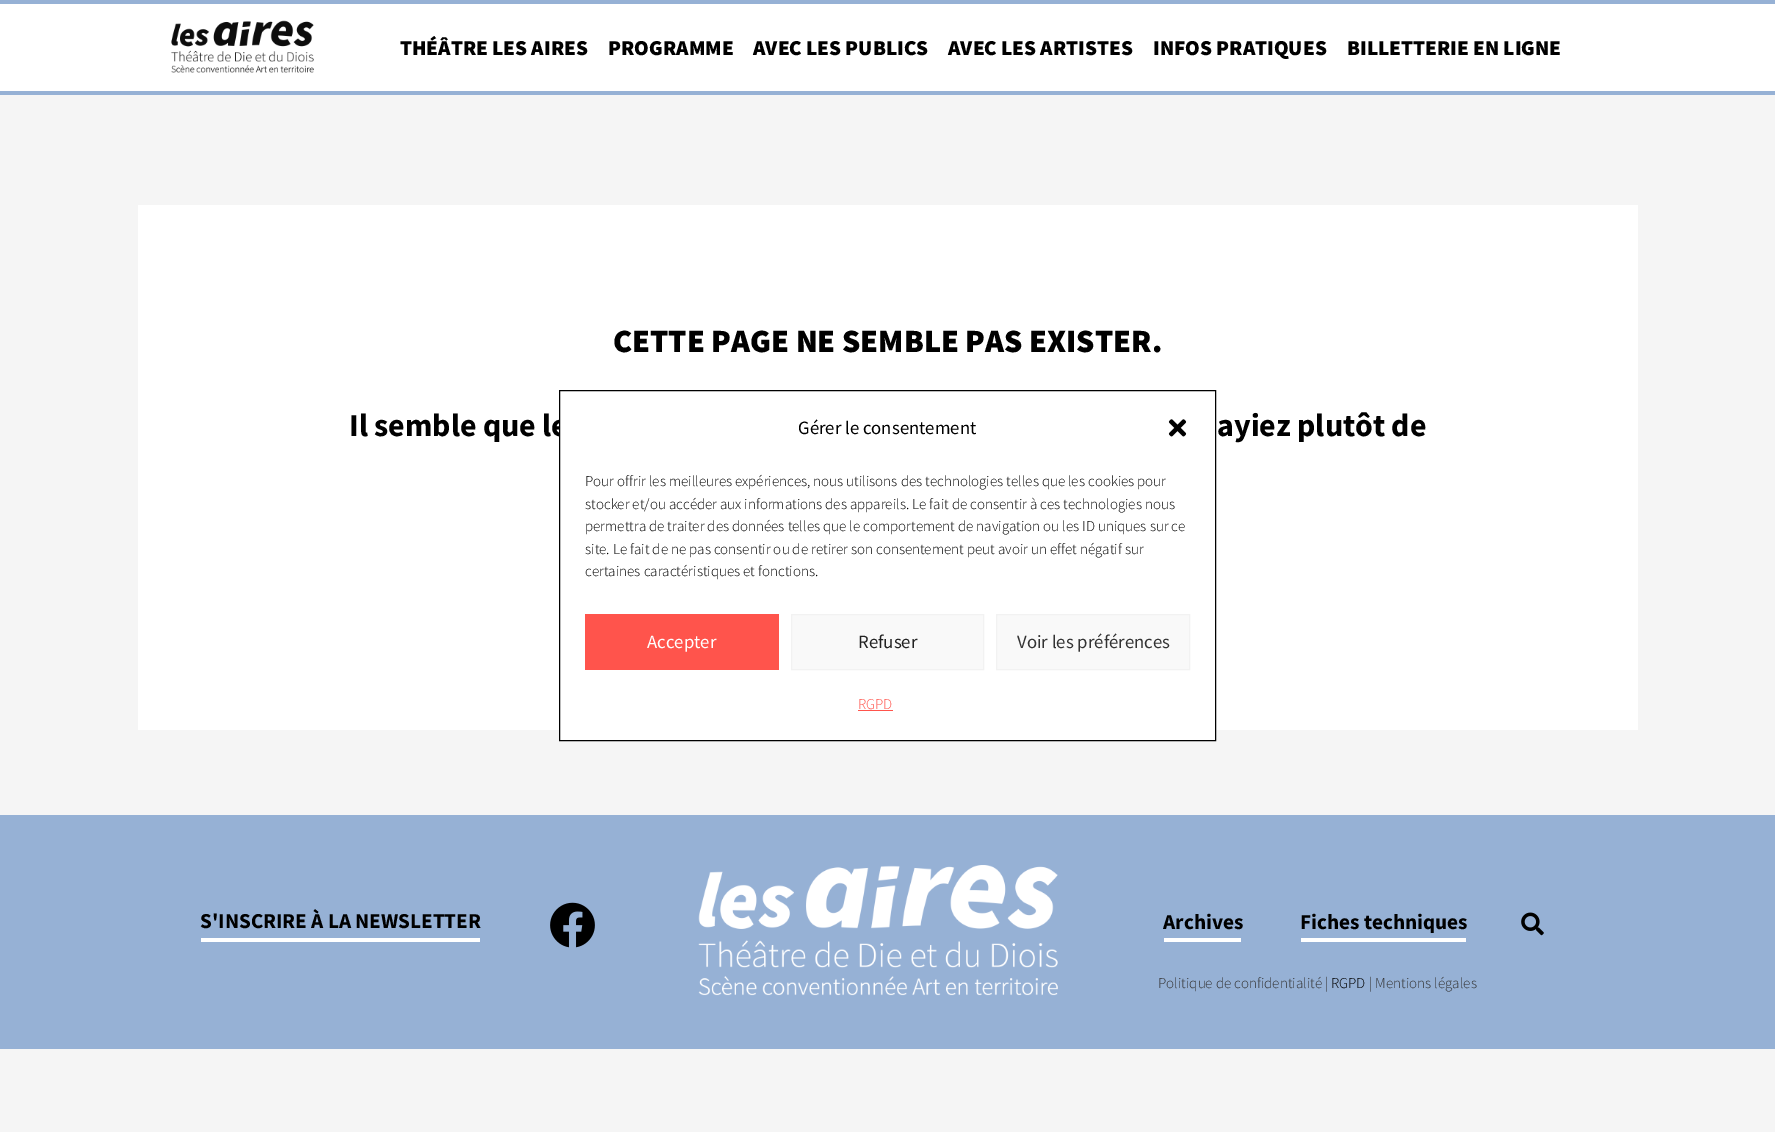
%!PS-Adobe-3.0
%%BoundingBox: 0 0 1775 1132
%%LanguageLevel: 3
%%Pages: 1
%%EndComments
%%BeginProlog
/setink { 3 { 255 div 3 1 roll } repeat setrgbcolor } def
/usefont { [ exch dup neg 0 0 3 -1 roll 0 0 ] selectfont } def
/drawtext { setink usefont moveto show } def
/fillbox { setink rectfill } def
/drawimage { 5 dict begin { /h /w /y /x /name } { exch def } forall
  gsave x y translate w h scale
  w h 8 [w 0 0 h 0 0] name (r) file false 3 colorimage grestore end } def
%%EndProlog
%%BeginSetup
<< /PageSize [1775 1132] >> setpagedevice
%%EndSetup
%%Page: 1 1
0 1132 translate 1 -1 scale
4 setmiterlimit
0 0 1775 1132 245 245 245 fillbox
0 4 1775 87 255 255 255 fillbox
0 0 1775 4 150 177 213 fillbox
0 91 1775 4 150 177 213 fillbox
(assets/img1.rgb) 171 20 143 53 drawimage
(THÉÂTRE LES AIRES) 400 55 /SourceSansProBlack-Black 21.25 0 0 0 drawtext
(PROGRAMME) 608 55 /SourceSansProBlack-Black 21.25 0 0 0 drawtext
(AVEC LES PUBLICS) 753 55 /SourceSansProBlack-Black 21.25 0 0 0 drawtext
(AVEC LES ARTISTES) 948 55 /SourceSansProBlack-Black 21.25 0 0 0 drawtext
(INFOS PRATIQUES) 1153 55 /SourceSansProBlack-Black 21.25 0 0 0 drawtext
(BILLETTERIE EN LIGNE) 1347 55 /SourceSansProBlack-Black 21.25 0 0 0 drawtext
138 205 1500 525 255 255 255 fillbox
(CETTE PAGE NE SEMBLE PAS EXISTER.) 613 352 /SourceSansProBlack-Black 32.5 0 0 0 drawtext
(Il semble que le) 349 436 /SourceSansPro-Bold 32 0 0 0 drawtext
(ayiez plutôt de) 1217 436 /SourceSansPro-Bold 32 0 0 0 drawtext
0 815 1775 234 150 177 213 fillbox
201 938 279 4 255 255 255 fillbox
(S'INSCRIRE À LA NEWSLETTER) 200 928 /SourceSansPro-Bold 21.25 0 0 0 drawtext
(assets/img2.rgb) 550 902 45 46 drawimage
(assets/img3.rgb) 698 865 360 131 drawimage
1164 938 77 4 255 255 255 fillbox
(Archives) 1163 929 /SourceSansPro-Bold 21.25 0 0 0 drawtext
1301 938 165 4 255 255 255 fillbox
(Fiches techniques) 1300 929 /SourceSansPro-Bold 21.25 0 0 0 drawtext
(assets/img4.rgb) 1521 912 23 24 drawimage
(Politique de confidentialité |) 1158 988 /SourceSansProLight-Light 15 51 51 51 drawtext
(RGPD) 1331 988 /SourceSansProLight-Light 15 0 0 0 drawtext
(| Mentions légales) 1369 988 /SourceSansProLight-Light 15 51 51 51 drawtext
560 419 655 321 255 255 255 fillbox
0 0 0 setink
559.5 390.5 656 350 rectstroke
(Gérer le consentement) 798 434 /SourceSansPro-Regular 18.75 0 0 0 drawtext
(assets/img5.rgb) 1168 419 19 18 drawimage
(Pour offrir les meilleures expériences, nous utilisons des technologies telles que les cookies pour) 585 486 /SourceSansProLight-Light 15 0 0 0 drawtext
(stocker et/ou accéder aux informations des appareils. Le fait de consentir à ces technologies nous) 585 509 /SourceSansProLight-Light 15 0 0 0 drawtext
(permettra de traiter des données telles que le comportement de navigation ou les ID uniques sur ce) 585 531 /SourceSansProLight-Light 15 0 0 0 drawtext
(site. Le fait de ne pas consentir ou de retirer son consentement peut avoir un effet négatif sur) 585 554 /SourceSansProLight-Light 15 0 0 0 drawtext
(certaines caractéristiques et fonctions.) 585 576 /SourceSansProLight-Light 15 0 0 0 drawtext
585 614 194 56 255 84 76 fillbox
(Accepter) 647 648 /SourceSansPro-Regular 18.75 255 255 255 drawtext
249 249 249 setink
791.5 614.5 moveto 983.5 614.5 lineto 983.5 669.5 lineto 791.5 669.5 lineto closepath gsave fill grestore
242 242 242 setink
stroke
(Refuser) 858 648 /SourceSansPro-Regular 18.75 34 34 34 drawtext
249 249 249 setink
996.5 614.5 moveto 1189.5 614.5 lineto 1189.5 669.5 lineto 996.5 669.5 lineto closepath gsave fill grestore
242 242 242 setink
stroke
(Voir les préférences) 1017 648 /SourceSansPro-Regular 18.75 51 51 51 drawtext
(RGPD) 858 709 /SourceSansProLight-Light 15 255 84 76 drawtext
858 710 35 1 255 84 76 fillbox
showpage
%%EOF
